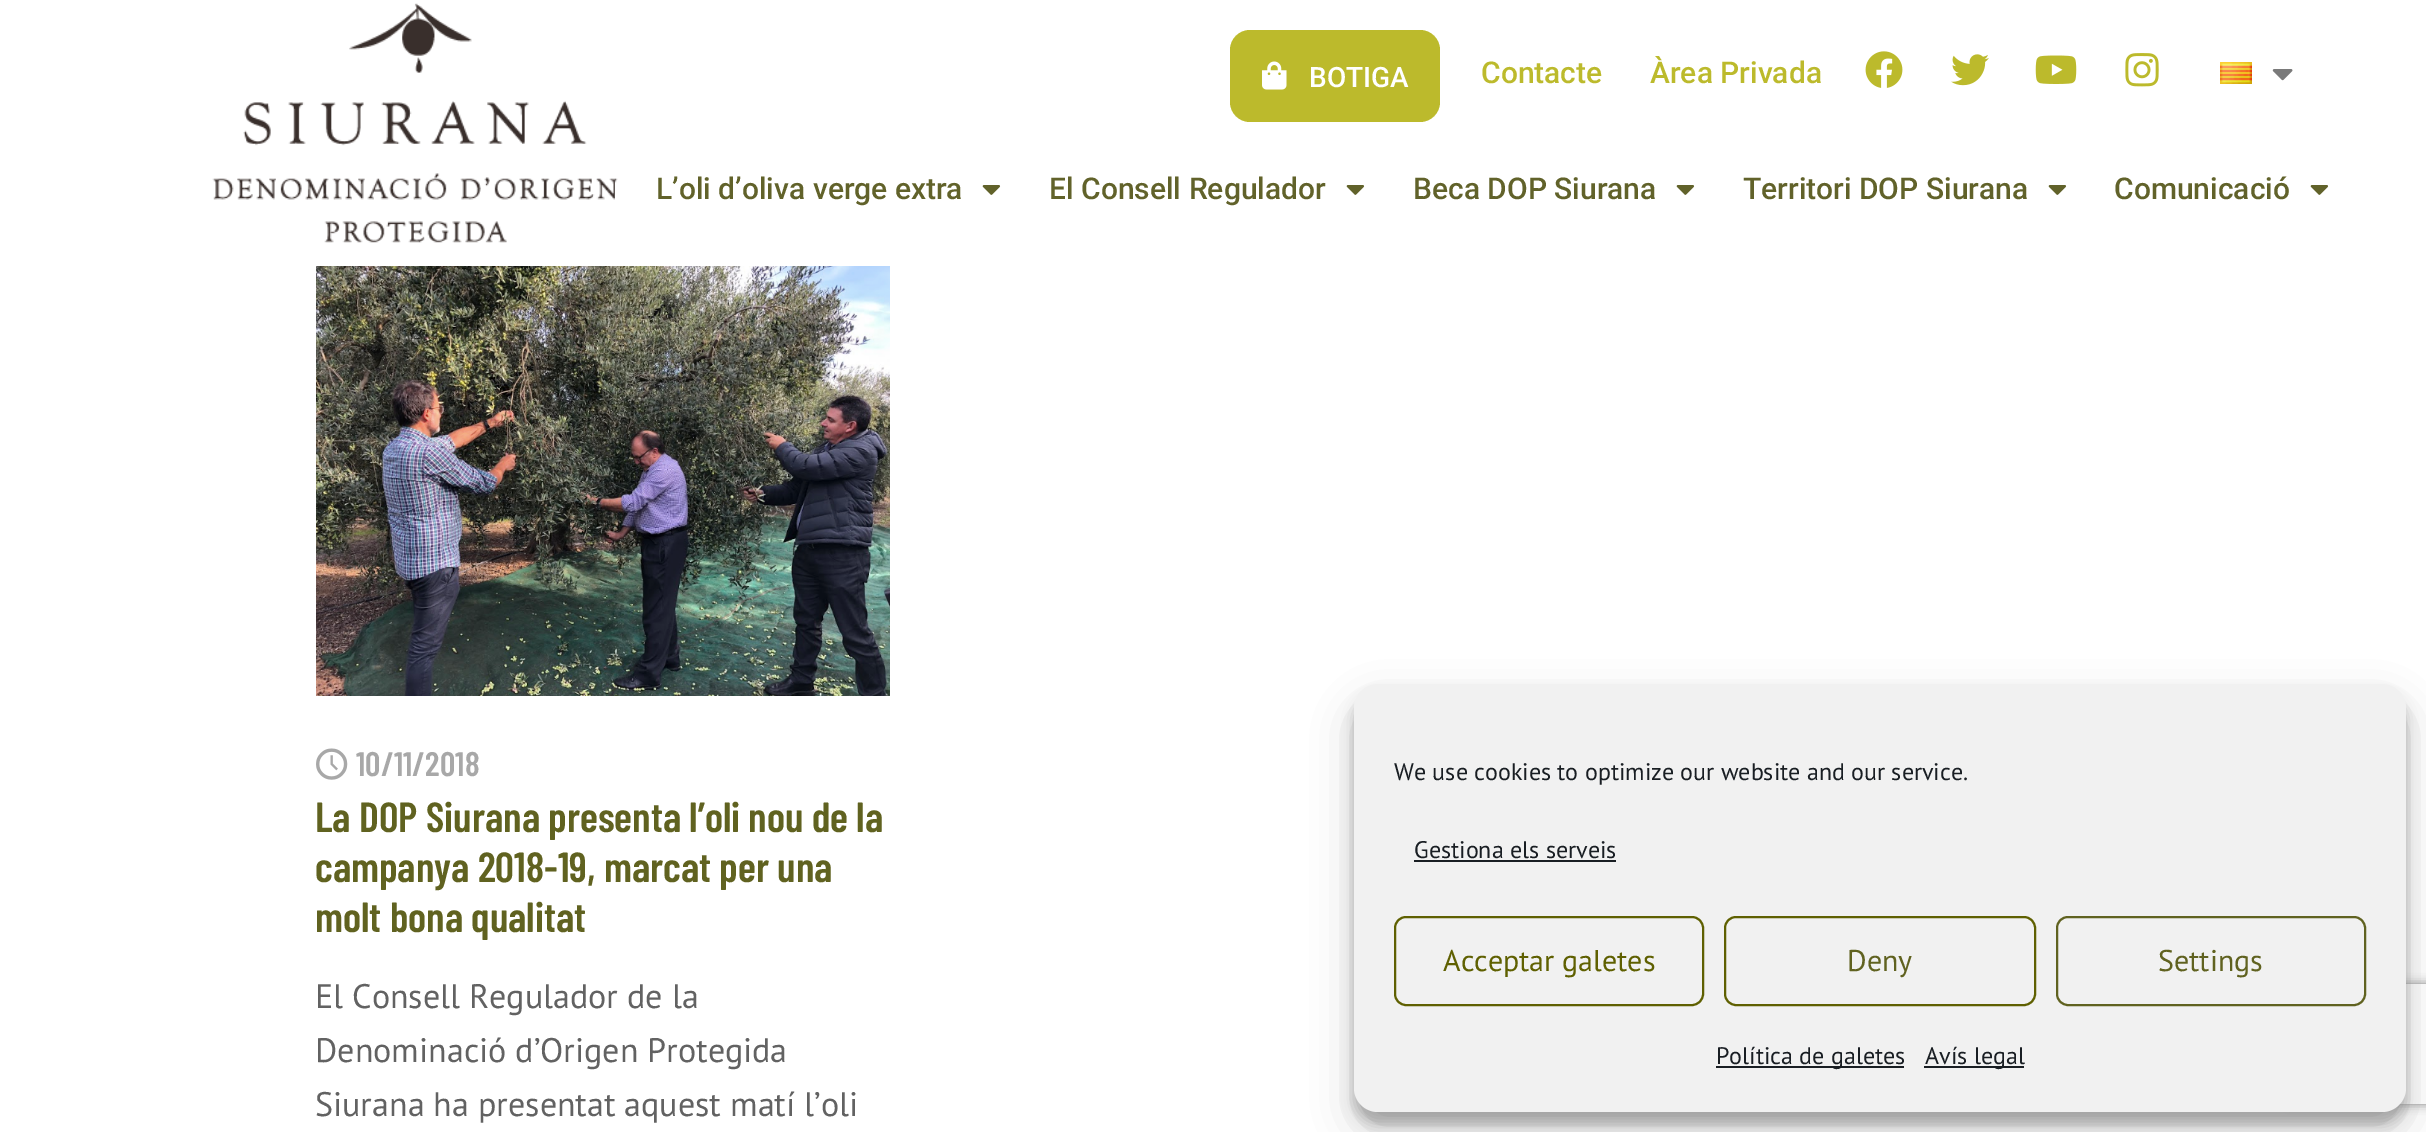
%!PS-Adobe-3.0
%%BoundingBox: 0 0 2426 1132
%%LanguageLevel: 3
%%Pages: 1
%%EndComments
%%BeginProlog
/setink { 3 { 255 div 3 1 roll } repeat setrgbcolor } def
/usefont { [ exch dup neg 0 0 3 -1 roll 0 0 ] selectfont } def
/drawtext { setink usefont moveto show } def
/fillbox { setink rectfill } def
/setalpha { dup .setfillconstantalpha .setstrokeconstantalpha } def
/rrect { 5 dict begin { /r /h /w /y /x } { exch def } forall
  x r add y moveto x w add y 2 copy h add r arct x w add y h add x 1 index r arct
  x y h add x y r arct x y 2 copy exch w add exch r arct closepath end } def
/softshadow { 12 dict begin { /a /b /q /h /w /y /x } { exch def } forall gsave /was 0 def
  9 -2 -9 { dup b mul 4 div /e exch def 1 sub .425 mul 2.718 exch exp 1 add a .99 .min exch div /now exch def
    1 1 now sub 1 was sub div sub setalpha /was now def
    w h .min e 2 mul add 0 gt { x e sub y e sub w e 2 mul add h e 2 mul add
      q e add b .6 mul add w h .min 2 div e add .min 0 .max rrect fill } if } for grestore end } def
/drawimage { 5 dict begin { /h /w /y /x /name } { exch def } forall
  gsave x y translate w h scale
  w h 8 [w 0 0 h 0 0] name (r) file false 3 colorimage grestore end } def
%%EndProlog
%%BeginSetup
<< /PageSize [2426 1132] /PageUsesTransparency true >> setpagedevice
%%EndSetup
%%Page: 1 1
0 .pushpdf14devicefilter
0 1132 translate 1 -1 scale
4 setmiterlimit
0 0 2426 1132 255 255 255 fillbox
(assets/img1.rgb) 212 3 406 240 drawimage
188 186 44 setink
1230 30 210 92 20 rrect fill
(assets/img2.rgb) 1262 61 25 29 drawimage
(BOTIGA) 1309 87 /Roboto-Medium 28 255 255 255 drawtext
(Contacte) 1481 83 /Roboto-Medium 30 188 186 44 drawtext
(Àrea Privada) 1650 83 /Roboto-Medium 30 188 186 44 drawtext
(assets/img3.rgb) 1865 51 38 37 drawimage
(assets/img4.rgb) 1951 54 38 32 drawimage
(assets/img5.rgb) 2035 55 42 29 drawimage
(assets/img6.rgb) 2125 53 34 34 drawimage
(assets/img7.rgb) 2220 62 32 22 drawimage
(assets/img8.rgb) 2272 69 21 12 drawimage
(L’oli d’oliva verge extra) 656 199 /Roboto-Medium 30 97 98 42 drawtext
(assets/img9.rgb) 982 185 19 10 drawimage
(El Consell Regulador) 1049 199 /Roboto-Medium 30 97 98 42 drawtext
(assets/img9.rgb) 1346 185 19 10 drawimage
(Beca DOP Siurana) 1413 199 /Roboto-Medium 30 97 98 42 drawtext
(assets/img9.rgb) 1676 185 19 10 drawimage
(Territori DOP Siurana) 1743 199 /Roboto-Medium 30 97 98 42 drawtext
(assets/img9.rgb) 2048 185 19 10 drawimage
(Comunicació) 2114 199 /Roboto-Medium 30 97 98 42 drawtext
(assets/img9.rgb) 2310 185 19 10 drawimage
(assets/img10.rgb) 316 266 574 430 drawimage
(assets/img11.rgb) 316 748 32 32 drawimage
(10/11/2018) 356 776 /BarlowCondensed-SemiBold 34 168 168 168 drawtext
(La DOP Siurana presenta l’oli nou de la) 315 832 /BarlowCondensed-SemiBold 42 96 98 32 drawtext
(campanya 2018-19, marcat per una) 315 882 /BarlowCondensed-SemiBold 42 96 98 32 drawtext
(molt bona qualitat) 315 932 /BarlowCondensed-SemiBold 42 96 98 32 drawtext
(El Consell Regulador de la) 315 1008 /PTSans-Regular 34 98 98 98 drawtext
(Denominació d’Origen Protegida) 315 1062 /PTSans-Regular 34 98 98 98 drawtext
(Siurana ha presentat aquest matí l’oli) 315 1116 /PTSans-Regular 34 98 98 98 drawtext
0 0 0 setink
1354 696 1052 428 24 6 0.23 softshadow
1354 704 1052 428 24 20 0.19 softshadow
gsave
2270 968 moveto 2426 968 lineto 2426 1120 lineto 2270 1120 lineto closepath 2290 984 moveto 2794 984 lineto 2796 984 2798 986 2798 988 curveto 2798 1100 lineto 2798 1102 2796 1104 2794 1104 curveto 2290 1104 lineto 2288 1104 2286 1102 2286 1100 curveto 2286 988 lineto 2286 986 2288 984 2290 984 curveto closepath eoclip newpath
128 128 128 setink
2286 984 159 120 4 5 1 softshadow
grestore
241 241 241 setink
1354 684 1052 428 24 rrect fill
(We use cookies to optimize our website and our service.) 1394 780 /PTSans-Regular 24 25 30 35 drawtext
(Gestiona els serveis) 1414 858 /PTSans-Regular 24 25 30 35 drawtext
1414 860 202 2 25 30 35 fillbox
95 96 1 setink
2 setlinewidth
1395 917 308 88 11 rrect stroke
(Acceptar galetes) 1443 971 /PTSans-Regular 30 95 96 1 drawtext
1725 917 310 88 11 rrect stroke
(Deny) 1847 971 /PTSans-Regular 30 96 98 32 drawtext
2057 917 308 88 11 rrect stroke
(Settings) 2158 971 /PTSans-Regular 30 96 98 32 drawtext
1716 1066 188 2 25 30 35 fillbox
(Política de galetes) 1716 1064 /PTSans-Regular 24 25 30 35 drawtext
1924 1066 100 2 25 30 35 fillbox
(Avís legal) 1925 1064 /PTSans-Regular 24 25 30 35 drawtext
.poppdf14devicefilter showpage
%%EOF
